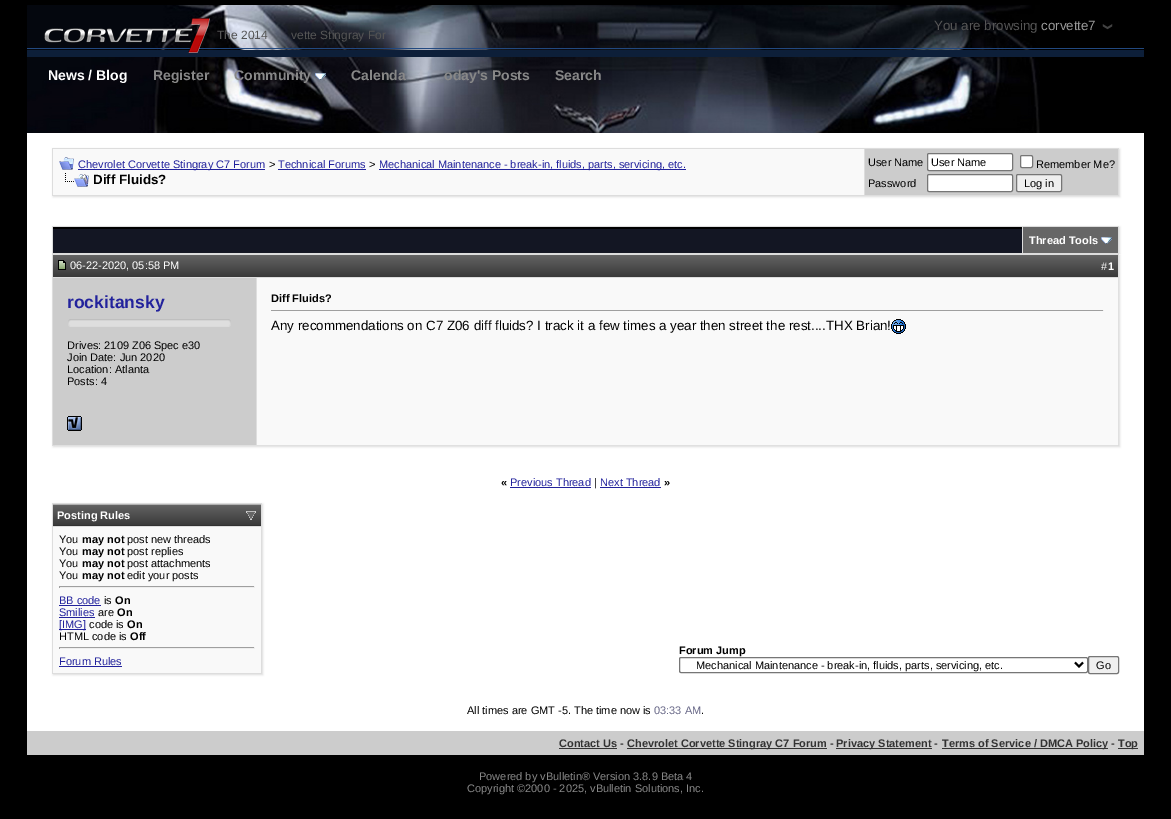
%!PS-Adobe-3.0
%%BoundingBox: 0 0 1171 819
%%LanguageLevel: 3
%%Pages: 1
%%EndComments
%%BeginProlog
/setink { 3 { 255 div 3 1 roll } repeat setrgbcolor } def
/usefont { [ exch dup neg 0 0 3 -1 roll 0 0 ] selectfont } def
/drawtext { setink usefont moveto show } def
/fillbox { setink rectfill } def
/setalpha { dup .setfillconstantalpha .setstrokeconstantalpha } def
/rrect { 5 dict begin { /r /h /w /y /x } { exch def } forall
  x r add y moveto x w add y 2 copy h add r arct x w add y h add x 1 index r arct
  x y h add x y r arct x y 2 copy exch w add exch r arct closepath end } def
/softshadow { 12 dict begin { /a /b /q /h /w /y /x } { exch def } forall gsave /was 0 def
  9 -2 -9 { dup b mul 4 div /e exch def 1 sub .425 mul 2.718 exch exp 1 add a .99 .min exch div /now exch def
    1 1 now sub 1 was sub div sub setalpha /was now def
    w h .min e 2 mul add 0 gt { x e sub y e sub w e 2 mul add h e 2 mul add
      q e add b .6 mul add w h .min 2 div e add .min 0 .max rrect fill } if } for grestore end } def
/drawimage { 5 dict begin { /h /w /y /x /name } { exch def } forall
  gsave x y translate w h scale
  w h 8 [w 0 0 h 0 0] name (r) file false 3 colorimage grestore end } def
%%EndProlog
%%BeginSetup
<< /PageSize [1171 819] /PageUsesTransparency true >> setpagedevice
%%EndSetup
%%Page: 1 1
0 .pushpdf14devicefilter
0 819 translate 1 -1 scale
4 setmiterlimit
0 0 1171 819 0 0 0 fillbox
(assets/img2.rgb) 27 5 1013 128 drawimage
(You are browsing) 934 30 /LiberationSans-Regular 13.35 85 85 85 drawtext
(corvette7) 1041 30 /LiberationSans-Regular 13.35 153 153 153 drawtext
(assets/img1.rgb) 1102 24 11 6 drawimage
27 48 1117 1 34 73 128 fillbox
27 50 1117 7 13 31 57 fillbox
(assets/img3.rgb) 44 18 166 35 drawimage
(The 2014) 217 39 /LiberationSans-Regular 12 85 85 85 drawtext
(vette Stingray For) 291 39 /LiberationSans-Regular 12 85 85 85 drawtext
(News / Blog) 48 80 /LiberationSans-Bold 14 255 255 255 drawtext
(Register) 153 80 /LiberationSans-Bold 14 136 136 136 drawtext
(Community) 234 80 /LiberationSans-Bold 14 136 136 136 drawtext
(assets/img4.rgb) 315 73 11 7 drawimage
(Calenda) 351 80 /LiberationSans-Bold 14 136 136 136 drawtext
(oday's Posts) 444 80 /LiberationSans-Bold 14 136 136 136 drawtext
(Search) 555 80 /LiberationSans-Bold 14 136 136 136 drawtext
27 133 1117 121 255 255 255 fillbox
221 221 221 setink
53 149 1067 48 0 1 1 softshadow
52 148 1067 48 221 221 221 fillbox
53 149 811 46 249 249 249 fillbox
(assets/img5.rgb) 59 157 15 13 drawimage
78 169 187 1 34 34 156 fillbox
(Chevrolet Corvette Stingray C7 Forum) 78 168 /LiberationSans-Regular 11 34 34 156 drawtext
(>) 269 168 /LiberationSans-Regular 11 0 0 0 drawtext
(Technical Forums) 278 168 /LiberationSans-Regular 11 34 34 156 drawtext
278 169 88 1 34 34 156 fillbox
(>) 369 168 /LiberationSans-Regular 11 0 0 0 drawtext
379 169 307 1 34 34 156 fillbox
(Mechanical Maintenance - break-in, fluids, parts, servicing, etc.) 379 168 /LiberationSans-Regular 11 34 34 156 drawtext
(assets/img6.rgb) 65 173 24 14 drawimage
(Diff Fluids?) 93 184 /LiberationSans-Bold 13.35 0 0 0 drawtext
865 149 253 46 204 204 204 fillbox
(User Name) 868 166 /LiberationSans-Regular 11 0 0 0 drawtext
255 255 255 setink
927.5 153.5 85 17 1.5 rrect gsave fill grestore
118 118 118 setink
stroke
(User Name) 931 166 /LiberationSans-Regular 11 0 0 0 drawtext
255 255 255 setink
1020.5 155.5 12 12 1.5 rrect gsave fill grestore
118 118 118 setink
stroke
(Remember Me?) 1036 168 /LiberationSans-Regular 11 0 0 0 drawtext
(Password) 868 187 /LiberationSans-Regular 11 0 0 0 drawtext
255 255 255 setink
927.5 174.5 85 17 1.5 rrect gsave fill grestore
118 118 118 setink
stroke
239 239 239 setink
1016.5 174.5 45 17 1.5 rrect gsave fill grestore
118 118 118 setink
stroke
(Log in) 1024 187 /LiberationSans-Regular 11 0 0 0 drawtext
221 221 221 setink
53 227 1067 28 0 1 1 softshadow
52 226 1067 28 221 221 221 fillbox
53 229 969 24 19 22 35 fillbox
53 227 969 2 0 0 0 fillbox
1023 227 95 26 102 102 102 fillbox
(Thread Tools) 1029 244 /LiberationSans-Bold 11 255 255 255 drawtext
(assets/img7.rgb) 1101 237 11 7 drawimage
27 254 1117 195 255 255 255 fillbox
221 221 221 setink
53 255 1067 192 0 1 1 softshadow
gsave 53 255 moveto 257 255 lineto 257 277 lineto 53 277 lineto closepath clip newpath
<< /ShadingType 2 /ColorSpace /DeviceRGB /Coords [155 277 155 255] /Extend [true true] /Function << /FunctionType 2 /Domain [0 1] /C0 [0.227 0.227 0.227] /C1 [0.388 0.388 0.388] /N 1 >> >> shfill grestore
52 254 1067 1 221 221 221 fillbox
52 277 2 1 221 221 221 fillbox
52 254 1 147 221 221 221 fillbox
(assets/img8.rgb) 58 260 8 10 drawimage
(06-22-2020, 05:58 PM) 70 269 /LiberationSans-Regular 11 255 255 255 drawtext
gsave 257 255 moveto 1118 255 lineto 1118 277 lineto 257 277 lineto closepath clip newpath
<< /ShadingType 2 /ColorSpace /DeviceRGB /Coords [688 277 688 255] /Extend [true true] /Function << /FunctionType 2 /Domain [0 1] /C0 [0.227 0.227 0.227] /C1 [0.388 0.388 0.388] /N 1 >> >> shfill grestore
1118 254 1 3 221 221 221 fillbox
(#) 1101 270 /LiberationSans-Regular 11 255 255 255 drawtext
(1) 1108 270 /LiberationSans-Bold 11 255 255 255 drawtext
53 278 203 167 204 204 204 fillbox
(rockitansky) 67 308 /LiberationSans-Bold 17.5 34 34 156 drawtext
(assets/img9.rgb) 68 319 163 8 drawimage
(Drives: 2109 Z06 Spec e30) 67 349 /LiberationSans-Regular 11 0 0 0 drawtext
(Join Date: Jun 2020) 67 361 /LiberationSans-Regular 11 0 0 0 drawtext
(Location: Atlanta) 67 373 /LiberationSans-Regular 11 0 0 0 drawtext
(Posts: 4) 67 385 /LiberationSans-Regular 11 0 0 0 drawtext
257 278 861 167 249 249 249 fillbox
(Diff Fluids?) 271 302 /LiberationSans-Bold 11 0 0 0 drawtext
271 310 833 1 159 159 159 fillbox
1103 310 1 1 238 238 238 fillbox
(Any recommendations on C7 Z06 diff fluids? I track it a few times a year then street the rest....THX Brian!) 271 330 /LiberationSans-Regular 13.35 0 0 0 drawtext
(assets/img10.rgb) 891 319 15 15 drawimage
52 445 3 1 221 221 221 fillbox
52 401 1 45 221 221 221 fillbox
(assets/img11.rgb) 67 416 15 15 drawimage
1118 445 1 1 221 221 221 fillbox
27 449 1117 282 255 255 255 fillbox
(«) 501 486 /LiberationSans-Bold 11 0 0 0 drawtext
(Previous Thread) 510 486 /LiberationSans-Regular 11 34 34 156 drawtext
510 487 81 1 34 34 156 fillbox
(|) 594 486 /LiberationSans-Regular 11 0 0 0 drawtext
(Next Thread) 600 486 /LiberationSans-Regular 11 34 34 156 drawtext
600 487 61 1 34 34 156 fillbox
(») 664 486 /LiberationSans-Bold 11 0 0 0 drawtext
221 221 221 setink
53 504 210 171 0 1 1 softshadow
52 503 210 171 221 221 221 fillbox
gsave 53 505 moveto 261 505 lineto 261 525 lineto 53 525 lineto closepath clip newpath
<< /ShadingType 2 /ColorSpace /DeviceRGB /Coords [157 525 157 505] /Extend [true true] /Function << /FunctionType 2 /Domain [0 1] /C0 [0.227 0.227 0.227] /C1 [0.388 0.388 0.388] /N 1 >> >> shfill grestore
53 504 208 1 178 178 178 fillbox
53 525 208 1 49 49 49 fillbox
(Posting Rules) 57 519 /LiberationSans-Bold 11 255 255 255 drawtext
(assets/img12.rgb) 246 511 10 9 drawimage
53 527 208 146 249 249 249 fillbox
(You) 59 543 /LiberationSans-Regular 11 0 0 0 drawtext
(may not) 82 543 /LiberationSans-Bold 11 0 0 0 drawtext
(post new threads) 127 543 /LiberationSans-Regular 11 0 0 0 drawtext
(You) 59 555 /LiberationSans-Regular 11 0 0 0 drawtext
(may not) 82 555 /LiberationSans-Bold 11 0 0 0 drawtext
(post replies) 127 555 /LiberationSans-Regular 11 0 0 0 drawtext
(You) 59 567 /LiberationSans-Regular 11 0 0 0 drawtext
(may not) 82 567 /LiberationSans-Bold 11 0 0 0 drawtext
(post attachments) 127 567 /LiberationSans-Regular 11 0 0 0 drawtext
(You) 59 579 /LiberationSans-Regular 11 0 0 0 drawtext
(may not) 82 579 /LiberationSans-Bold 11 0 0 0 drawtext
(edit your posts) 127 579 /LiberationSans-Regular 11 0 0 0 drawtext
59 586 196 1 159 159 159 fillbox
254 586 1 2 238 238 238 fillbox
59 587 196 1 238 238 238 fillbox
59 586 1 2 159 159 159 fillbox
(BB code) 59 604 /LiberationSans-Regular 11 34 34 156 drawtext
59 605 42 1 34 34 156 fillbox
(is) 104 604 /LiberationSans-Regular 11 0 0 0 drawtext
(On) 115 604 /LiberationSans-Bold 11 0 0 0 drawtext
(Smilies) 59 616 /LiberationSans-Regular 11 34 34 156 drawtext
59 617 36 1 34 34 156 fillbox
(are) 98 616 /LiberationSans-Regular 11 0 0 0 drawtext
(On) 117 616 /LiberationSans-Bold 11 0 0 0 drawtext
59 629 27 1 34 34 156 fillbox
([IMG]) 59 628 /LiberationSans-Regular 11 34 34 156 drawtext
(code is) 89 628 /LiberationSans-Regular 11 0 0 0 drawtext
(On) 127 628 /LiberationSans-Bold 11 0 0 0 drawtext
(HTML code is) 59 640 /LiberationSans-Regular 11 0 0 0 drawtext
(Off) 130 640 /LiberationSans-Bold 11 0 0 0 drawtext
59 647 196 1 159 159 159 fillbox
254 647 1 2 238 238 238 fillbox
59 648 196 1 238 238 238 fillbox
59 647 1 2 159 159 159 fillbox
(Forum Rules) 59 665 /LiberationSans-Regular 11 34 34 156 drawtext
59 666 63 1 34 34 156 fillbox
(Forum Jump) 679 654 /LiberationSans-Bold 11 0 0 0 drawtext
118 118 118 setink
679.5 657.5 408 15 1.5 rrect stroke
0 0 0 setink
2 setlinewidth
1075 662.5 moveto 1079 666.5 lineto 1083 662.5 lineto stroke
(Mechanical Maintenance - break-in, fluids, parts, servicing, etc.) 696 669 /LiberationSans-Regular 11 0 0 0 drawtext
239 239 239 setink
1088.5 656.5 30 17 1.5 rrect gsave fill grestore
118 118 118 setink
1 setlinewidth
stroke
(Go) 1096 669 /LiberationSans-Regular 11 0 0 0 drawtext
(All times are GMT -5. The time now is) 467 714 /LiberationSans-Regular 11 0 0 0 drawtext
(03:33 AM) 654 714 /LiberationSans-Regular 11 102 102 134 drawtext
(.) 701 714 /LiberationSans-Regular 11 0 0 0 drawtext
27 731 1117 24 204 204 204 fillbox
(Contact Us -) 559 747 /LiberationSans-Bold 11 51 51 51 drawtext
559 748 58 1 51 51 51 fillbox
627 748 200 1 51 51 51 fillbox
(Chevrolet Corvette Stingray C7 Forum -) 627 747 /LiberationSans-Bold 11 51 51 51 drawtext
836 748 96 1 51 51 51 fillbox
(Privacy Statement -) 836 747 /LiberationSans-Bold 11 51 51 51 drawtext
942 748 166 1 51 51 51 fillbox
(Terms of Service / DMCA Policy -) 942 747 /LiberationSans-Bold 11 51 51 51 drawtext
1118 748 20 1 51 51 51 fillbox
(Top) 1118 747 /LiberationSans-Bold 11 51 51 51 drawtext
(Powered by vBulletin® Version 3.8.9 Beta 4) 479 780 /LiberationSans-Regular 11 136 136 136 drawtext
(Copyright ©2000 - 2025, vBulletin Solutions, Inc.) 467 792 /LiberationSans-Regular 11 136 136 136 drawtext
.poppdf14devicefilter showpage
%%EOF
